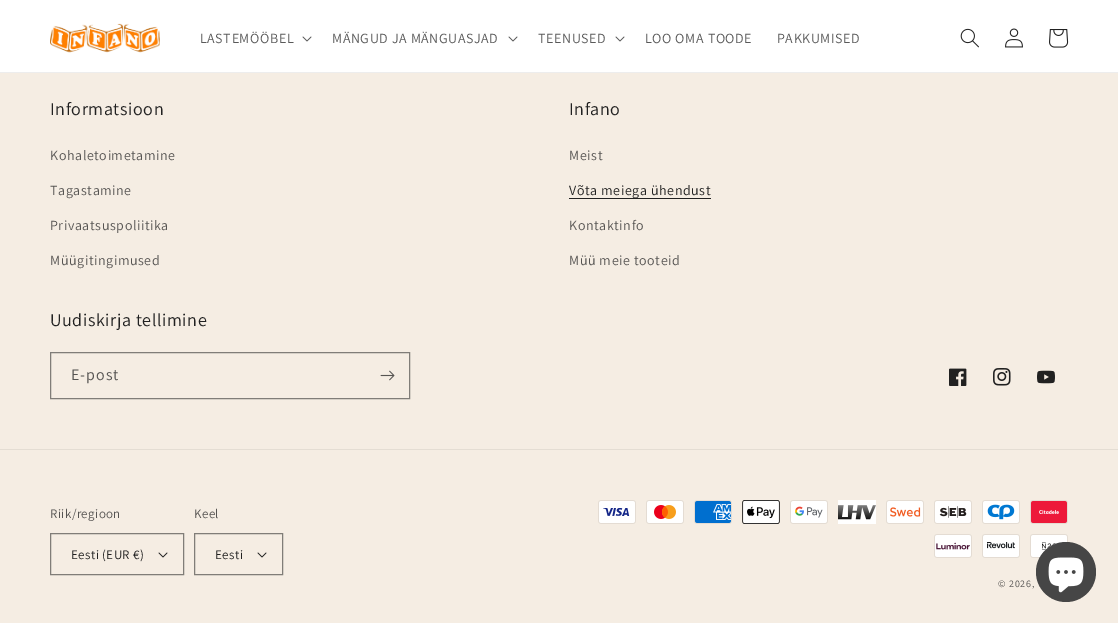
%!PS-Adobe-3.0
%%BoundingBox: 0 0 1118 623
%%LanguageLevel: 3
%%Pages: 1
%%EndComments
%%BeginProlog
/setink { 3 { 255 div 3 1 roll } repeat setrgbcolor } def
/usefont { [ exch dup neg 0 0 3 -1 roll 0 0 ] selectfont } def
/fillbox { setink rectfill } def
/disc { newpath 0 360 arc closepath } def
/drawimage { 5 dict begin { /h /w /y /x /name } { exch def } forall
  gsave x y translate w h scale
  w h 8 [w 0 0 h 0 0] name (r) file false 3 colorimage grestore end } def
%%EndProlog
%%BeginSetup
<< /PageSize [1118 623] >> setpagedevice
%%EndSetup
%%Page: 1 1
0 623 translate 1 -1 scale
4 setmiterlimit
0 0 1118 623 245 237 227 fillbox
0 0 1118 72 255 255 255 fillbox
0 72 1118 1 237 237 237 fillbox
(assets/img1.rgb) 50 23 110 30 drawimage
/Assistant-Regular 14 usefont
89 89 89 setink
200 43 moveto 0.6 0 (LASTEMÖÖBEL) ashow
(assets/img2.rgb) 302 36 10 6 drawimage
332 43 moveto 0.6 0 (MÄNGUD JA MÄNGUASJAD) ashow
(assets/img2.rgb) 508 36 10 6 drawimage
538 43 moveto 0.6 0 (TEENUSED) ashow
(assets/img2.rgb) 615 36 10 6 drawimage
645 43 moveto 0.6 0 (LOO OMA TOODE) ashow
777 43 moveto 0.6 0 (PAKKUMISED) ashow
(assets/img3.rgb) 960 28 19 20 drawimage
(assets/img4.rgb) 1005 28 18 20 drawimage
(assets/img5.rgb) 1049 29 20 19 drawimage
/Assistant-Regular 18 usefont
33 33 33 setink
50 115 moveto 0.6 0 (Informatsioon) ashow
/Assistant-Regular 14 usefont
86 84 82 setink
50 160 moveto 0.6 0 (Kohaletoimetamine) ashow
50 195 moveto 0.6 0 (Tagastamine) ashow
50 230 moveto 0.6 0 (Privaatsuspoliitika) ashow
50 265 moveto 0.6 0 (Müügitingimused) ashow
/Assistant-Regular 18 usefont
33 33 33 setink
569 115 moveto 0.6 0 (Infano) ashow
/Assistant-Regular 14 usefont
86 84 82 setink
569 160 moveto 0.6 0 (Meist) ashow
569 198 142 1 33 33 33 fillbox
569 195 moveto 0.6 0 (Võta meiega ühendust) ashow
86 84 82 setink
569 230 moveto 0.6 0 (Kontaktinfo) ashow
569 265 moveto 0.6 0 (Müü meie tooteid) ashow
/Assistant-Regular 18 usefont
33 33 33 setink
50 326 moveto 0.6 0 (Uudiskirja tellimine) ashow
128 125 120 setink
50.5 352.5 359 46 rectstroke
/Assistant-Regular 16 usefont
86 84 82 setink
71 380 moveto 1 0 (E-post) ashow
(assets/img6.rgb) 380 370 15 11 drawimage
(assets/img7.rgb) 949 368 18 18 drawimage
(assets/img8.rgb) 993 368 18 18 drawimage
(assets/img9.rgb) 1037 370 18 14 drawimage
0 449 1118 1 228 221 211 fillbox
/Assistant-Regular 13 usefont
86 84 82 setink
50 518 moveto 0.4 0 (Riik/regioon) ashow
(assets/img10.rgb) 158 552 10 6 drawimage
128 125 120 setink
50.5 533.5 133 41 rectstroke
33 33 33 setink
71 559 moveto 0.4 0 (Eesti \(EUR €\)) ashow
86 84 82 setink
194 518 moveto 0.4 0 (Keel) ashow
(assets/img10.rgb) 257 552 10 6 drawimage
128 125 120 setink
194.5 533.5 88 41 rectstroke
33 33 33 setink
215 559 moveto 0.4 0 (Eesti) ashow
(assets/img11.rgb) 598 500 38 24 drawimage
(assets/img12.rgb) 646 500 38 24 drawimage
(assets/img13.rgb) 694 500 38 24 drawimage
(assets/img14.rgb) 742 500 38 24 drawimage
(assets/img15.rgb) 790 500 38 24 drawimage
(assets/img16.rgb) 838 500 38 24 drawimage
(assets/img17.rgb) 886 500 38 24 drawimage
(assets/img18.rgb) 934 500 38 24 drawimage
(assets/img19.rgb) 982 500 38 24 drawimage
(assets/img20.rgb) 1030 500 38 24 drawimage
(assets/img21.rgb) 934 534 38 24 drawimage
(assets/img22.rgb) 982 534 38 24 drawimage
(assets/img23.rgb) 1030 534 38 24 drawimage
/Assistant-Regular 10 usefont
86 84 82 setink
998 587 moveto 0.75 0 (© 2026,) ashow
70 70 70 setink
1066 572 30 disc fill
(assets/img24.rgb) 1048 557 36 36 drawimage
showpage
%%EOF
